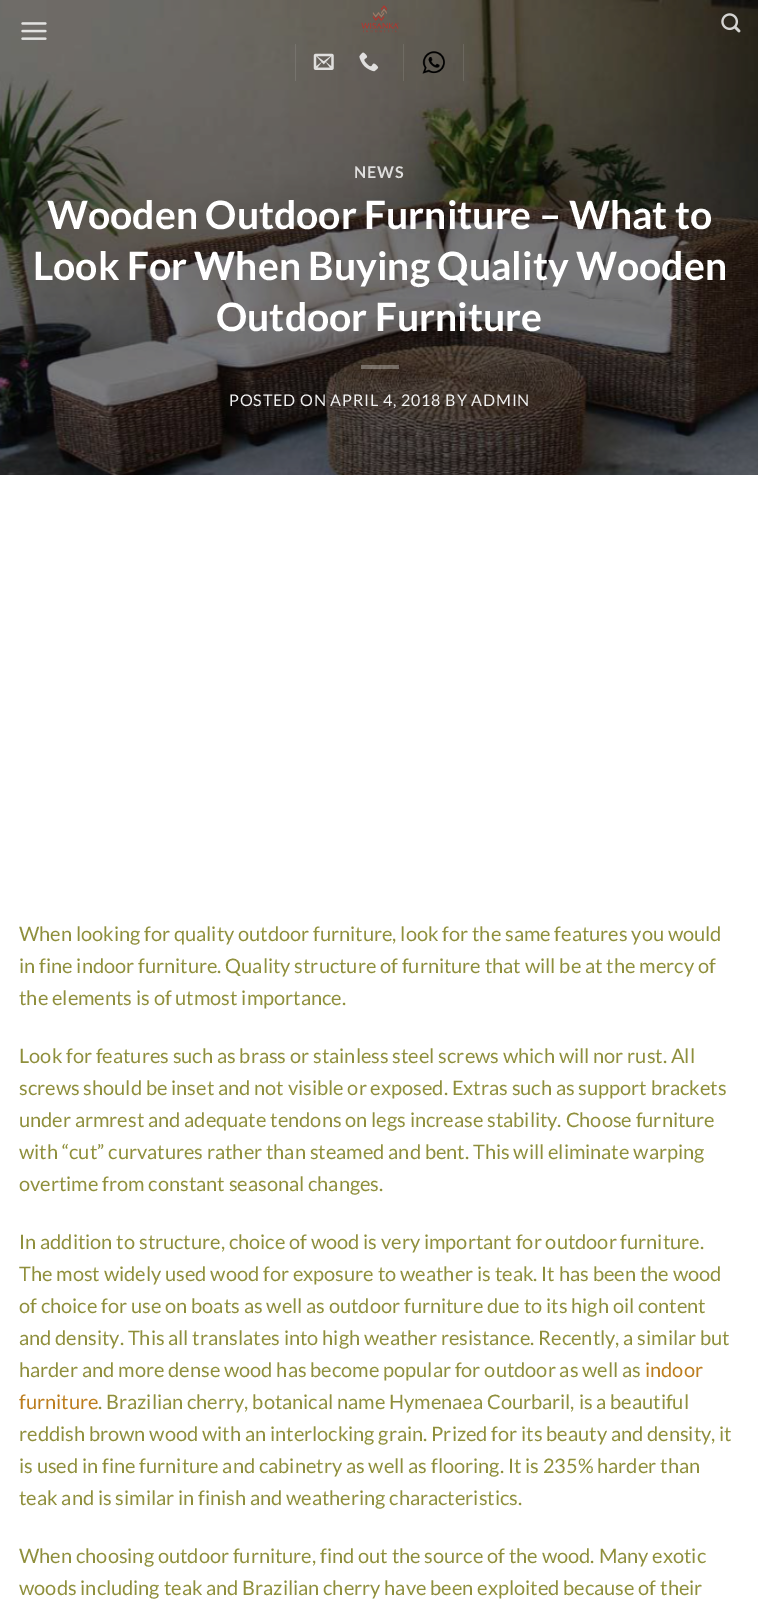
%!PS-Adobe-3.0
%%BoundingBox: 0 0 758 1620
%%LanguageLevel: 3
%%Pages: 1
%%EndComments
%%BeginProlog
/setink { 3 { 255 div 3 1 roll } repeat setrgbcolor } def
/usefont { [ exch dup neg 0 0 3 -1 roll 0 0 ] selectfont } def
/drawtext { setink usefont moveto show } def
/fillbox { setink rectfill } def
/setalpha { dup .setfillconstantalpha .setstrokeconstantalpha } def
/drawimage { 5 dict begin { /h /w /y /x /name } { exch def } forall
  gsave x y translate w h scale
  w h 8 [w 0 0 h 0 0] name (r) file false 3 colorimage grestore end } def
%%EndProlog
%%BeginSetup
<< /PageSize [758 1620] /PageUsesTransparency true >> setpagedevice
%%EndSetup
%%Page: 1 1
0 .pushpdf14devicefilter
0 1620 translate 1 -1 scale
4 setmiterlimit
0 0 758 1620 255 255 255 fillbox
(assets/img7.rgb) 0 0 758 475 drawimage
(assets/img1.rgb) 21 22 26 18 drawimage
(assets/img2.rgb) 361 5 38 28 drawimage
(assets/img3.rgb) 721 13 20 20 drawimage
295 44 1 37 118 115 109 fillbox
(assets/img4.rgb) 313 53 21 17 drawimage
(assets/img5.rgb) 359 52 20 20 drawimage
403 44 1 37 111 107 99 fillbox
(assets/img6.rgb) 422 51 23 23 drawimage
463 44 1 37 107 103 94 fillbox
/Lato-Bold 16.1 usefont
222 221 220 setink
354 178 moveto 0.8 0 (NEWS) ashow
(Wooden Outdoor Furniture – What to) 47 229 /Lato-Bold 39.1 255 255 255 drawtext
(Look For When Buying Quality Wooden) 33 280 /Lato-Bold 39.1 255 255 255 drawtext
(Outdoor Furniture) 216 331 /Lato-Bold 39.1 255 255 255 drawtext
0.3 setalpha
361 365 38 4 255 255 255 fillbox
/Lato-Regular 16.1 usefont
1 setalpha
241 241 241 setink
229 406 moveto 0.8 0 (POSTED ON APRIL 4, 2018 BY ADMIN) ashow
(When looking for quality outdoor furniture, look for the same features you would) 19 941 /Lato-Regular 20 143 143 60 drawtext
(in fine indoor furniture. Quality structure of furniture that will be at the mercy of) 19 973 /Lato-Regular 20 143 143 60 drawtext
(the elements is of utmost importance.) 19 1005 /Lato-Regular 20 143 143 60 drawtext
(Look for features such as brass or stainless steel screws which will nor rust. All) 19 1063 /Lato-Regular 20 143 143 60 drawtext
(screws should be inset and not visible or exposed. Extras such as support brackets) 19 1095 /Lato-Regular 20 143 143 60 drawtext
(under armrest and adequate tendons on legs increase stability. Choose furniture) 19 1127 /Lato-Regular 20 143 143 60 drawtext
(with “cut” curvatures rather than steamed and bent. This will eliminate warping) 19 1159 /Lato-Regular 20 143 143 60 drawtext
(overtime from constant seasonal changes.) 19 1191 /Lato-Regular 20 143 143 60 drawtext
(In addition to structure, choice of wood is very important for outdoor furniture.) 19 1249 /Lato-Regular 20 143 143 60 drawtext
(The most widely used wood for exposure to weather is teak. It has been the wood) 19 1281 /Lato-Regular 20 143 143 60 drawtext
(of choice for use on boats as well as outdoor furniture due to its high oil content) 19 1313 /Lato-Regular 20 143 143 60 drawtext
(and density. This all translates into high weather resistance. Recently, a similar but) 19 1345 /Lato-Regular 20 143 143 60 drawtext
(harder and more dense wood has become popular for outdoor as well as) 19 1377 /Lato-Regular 20 143 143 60 drawtext
(indoor) 645 1377 /Lato-Regular 20 188 125 30 drawtext
(furniture) 19 1409 /Lato-Regular 20 188 125 30 drawtext
(. Brazilian cherry, botanical name Hymenaea Courbaril, is a beautiful) 98 1409 /Lato-Regular 20 143 143 60 drawtext
(reddish brown wood with an interlocking grain. Prized for its beauty and density, it) 19 1441 /Lato-Regular 20 143 143 60 drawtext
(is used in fine furniture and cabinetry as well as flooring. It is 235% harder than) 19 1473 /Lato-Regular 20 143 143 60 drawtext
(teak and is similar in finish and weathering characteristics.) 19 1505 /Lato-Regular 20 143 143 60 drawtext
(When choosing outdoor furniture, find out the source of the wood. Many exotic) 19 1563 /Lato-Regular 20 143 143 60 drawtext
(woods including teak and Brazilian cherry have been exploited because of their) 19 1595 /Lato-Regular 20 143 143 60 drawtext
.poppdf14devicefilter showpage
%%EOF
